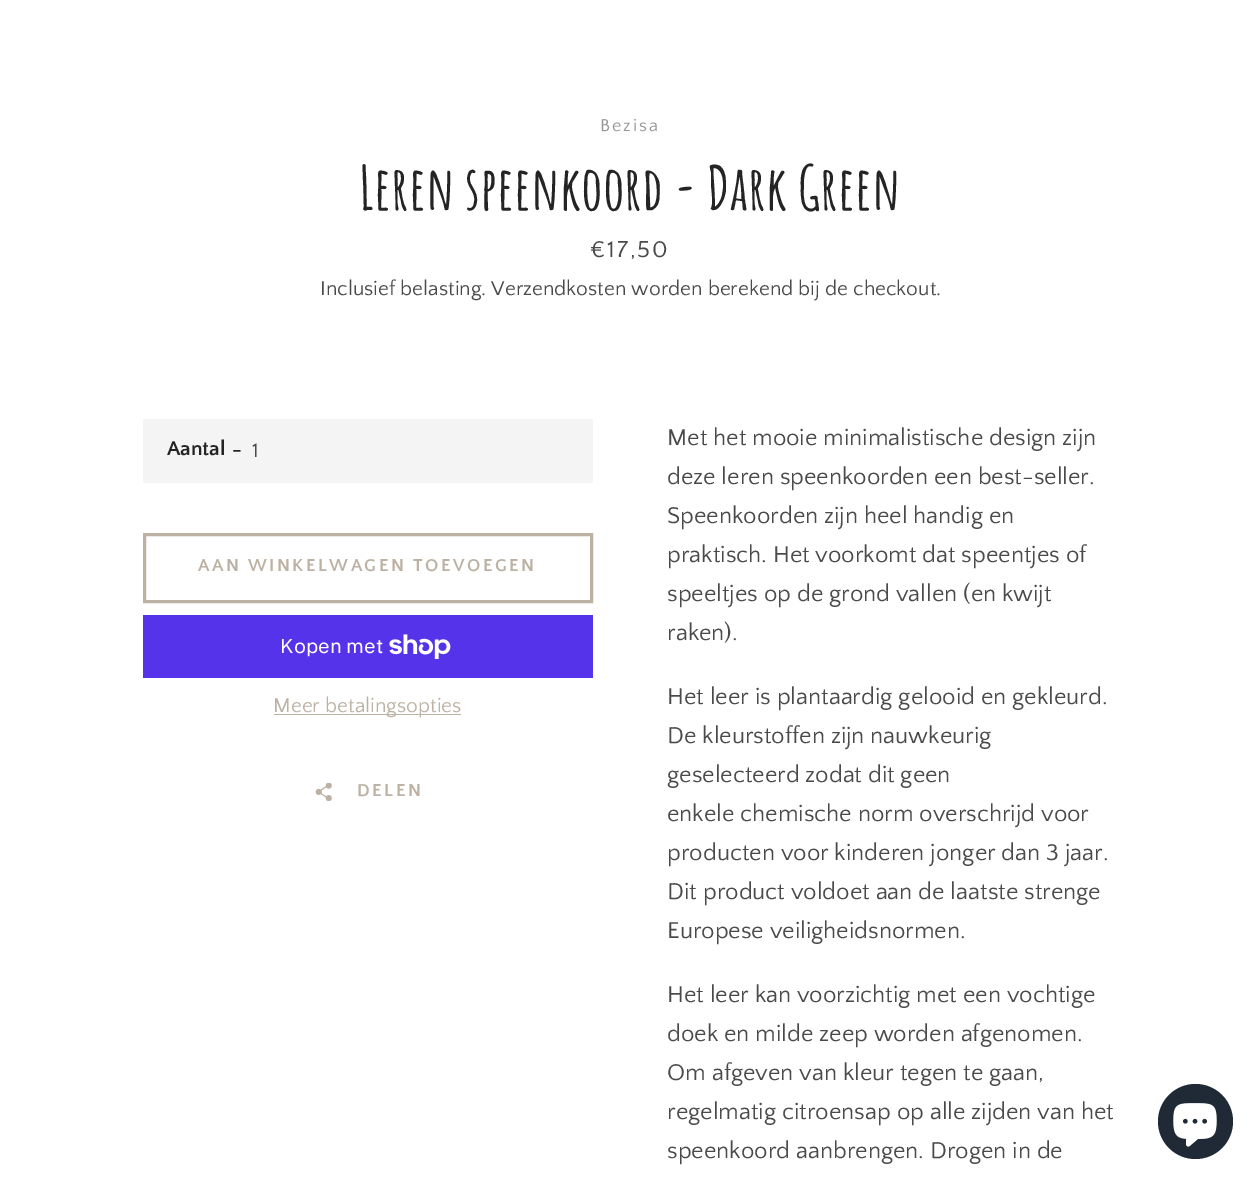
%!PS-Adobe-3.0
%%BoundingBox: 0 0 1260 1185
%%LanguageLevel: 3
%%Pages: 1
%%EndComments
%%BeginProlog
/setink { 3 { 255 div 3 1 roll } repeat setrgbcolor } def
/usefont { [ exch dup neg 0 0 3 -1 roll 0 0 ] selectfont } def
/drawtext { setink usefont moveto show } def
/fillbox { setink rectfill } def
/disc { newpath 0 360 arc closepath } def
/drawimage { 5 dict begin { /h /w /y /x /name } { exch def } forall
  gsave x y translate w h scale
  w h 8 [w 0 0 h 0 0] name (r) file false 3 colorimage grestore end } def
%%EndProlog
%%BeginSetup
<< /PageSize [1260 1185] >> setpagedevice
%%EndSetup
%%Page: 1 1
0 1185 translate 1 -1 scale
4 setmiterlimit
0 0 1260 1185 255 255 255 fillbox
/QuattrocentoSans-Regular 18 usefont
151 151 151 setink
600 131 moveto 2 0 (Bezisa) ashow
(Leren speenkoord - Dark Green) 359 210 /AmaticSC-Bold 60 36 36 36 drawtext
/QuattrocentoSans-Regular 24 usefont
74 74 74 setink
590 257 moveto 2 0 (€17,50) ashow
(Inclusief belasting. Verzendkosten worden berekend bij de checkout.) 320 295 /QuattrocentoSans-Regular 21 74 74 74 drawtext
143 419 450 64 243 244 243 fillbox
(Aantal) 167 455 /QuattrocentoSans-Bold 21 36 36 36 drawtext
(-) 232 456 /QuattrocentoSans-Bold 21 36 36 36 drawtext
(1) 252 457 /QuattrocentoSans-Regular 21 74 74 74 drawtext
188 177 163 setink
3 setlinewidth
144.5 534.5 447 67 rectstroke
/QuattrocentoSans-Bold 18 usefont
198 571 moveto 2.5 0 (AAN WINKELWAGEN TOEVOEGEN) ashow
143 615 450 63 84 51 235 fillbox
(Kopen met) 280 653 /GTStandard-Regular 20 255 255 255 drawtext
(assets/img1.rgb) 389 634 62 25 drawimage
274 714 187 1 188 177 163 fillbox
(Meer betalingsopties) 273 712 /QuattrocentoSans-Regular 21 188 177 163 drawtext
(assets/img2.rgb) 315 783 17 18 drawimage
/QuattrocentoSans-Bold 18 usefont
357 796 moveto 2.5 0 (DELEN) ashow
(Met het mooie minimalistische design zijn) 667 445 /QuattrocentoSans-Regular 24 74 74 74 drawtext
(deze leren speenkoorden een best-seller.) 667 484 /QuattrocentoSans-Regular 24 74 74 74 drawtext
(Speenkoorden zijn heel handig en) 667 523 /QuattrocentoSans-Regular 24 74 74 74 drawtext
(praktisch. Het voorkomt dat speentjes of) 667 562 /QuattrocentoSans-Regular 24 74 74 74 drawtext
(speeltjes op de grond vallen \(en kwijt) 667 601 /QuattrocentoSans-Regular 24 74 74 74 drawtext
(raken\).) 667 640 /QuattrocentoSans-Regular 24 74 74 74 drawtext
(Het leer is plantaardig gelooid en gekleurd.) 667 704 /QuattrocentoSans-Regular 24 74 74 74 drawtext
(De kleurstoffen zijn nauwkeurig) 667 743 /QuattrocentoSans-Regular 24 74 74 74 drawtext
(geselecteerd zodat dit geen) 667 782 /QuattrocentoSans-Regular 24 74 74 74 drawtext
(enkele chemische norm overschrijd voor) 667 821 /QuattrocentoSans-Regular 24 74 74 74 drawtext
(producten voor kinderen jonger dan 3 jaar.) 667 860 /QuattrocentoSans-Regular 24 74 74 74 drawtext
(Dit product voldoet aan de laatste strenge) 667 899 /QuattrocentoSans-Regular 24 74 74 74 drawtext
(Europese veiligheidsnormen.) 667 938 /QuattrocentoSans-Regular 24 74 74 74 drawtext
(Het leer kan voorzichtig met een vochtige) 667 1002 /QuattrocentoSans-Regular 24 74 74 74 drawtext
(doek en milde zeep worden afgenomen.) 667 1041 /QuattrocentoSans-Regular 24 74 74 74 drawtext
(Om afgeven van kleur tegen te gaan,) 667 1080 /QuattrocentoSans-Regular 24 74 74 74 drawtext
(regelmatig citroensap op alle zijden van het) 667 1119 /QuattrocentoSans-Regular 24 74 74 74 drawtext
(speenkoord aanbrengen. Drogen in de) 667 1158 /QuattrocentoSans-Regular 24 74 74 74 drawtext
32 42 54 setink
1195.5 1121.5 37.5 disc fill
(assets/img3.rgb) 1173 1103 44 44 drawimage
showpage
%%EOF
